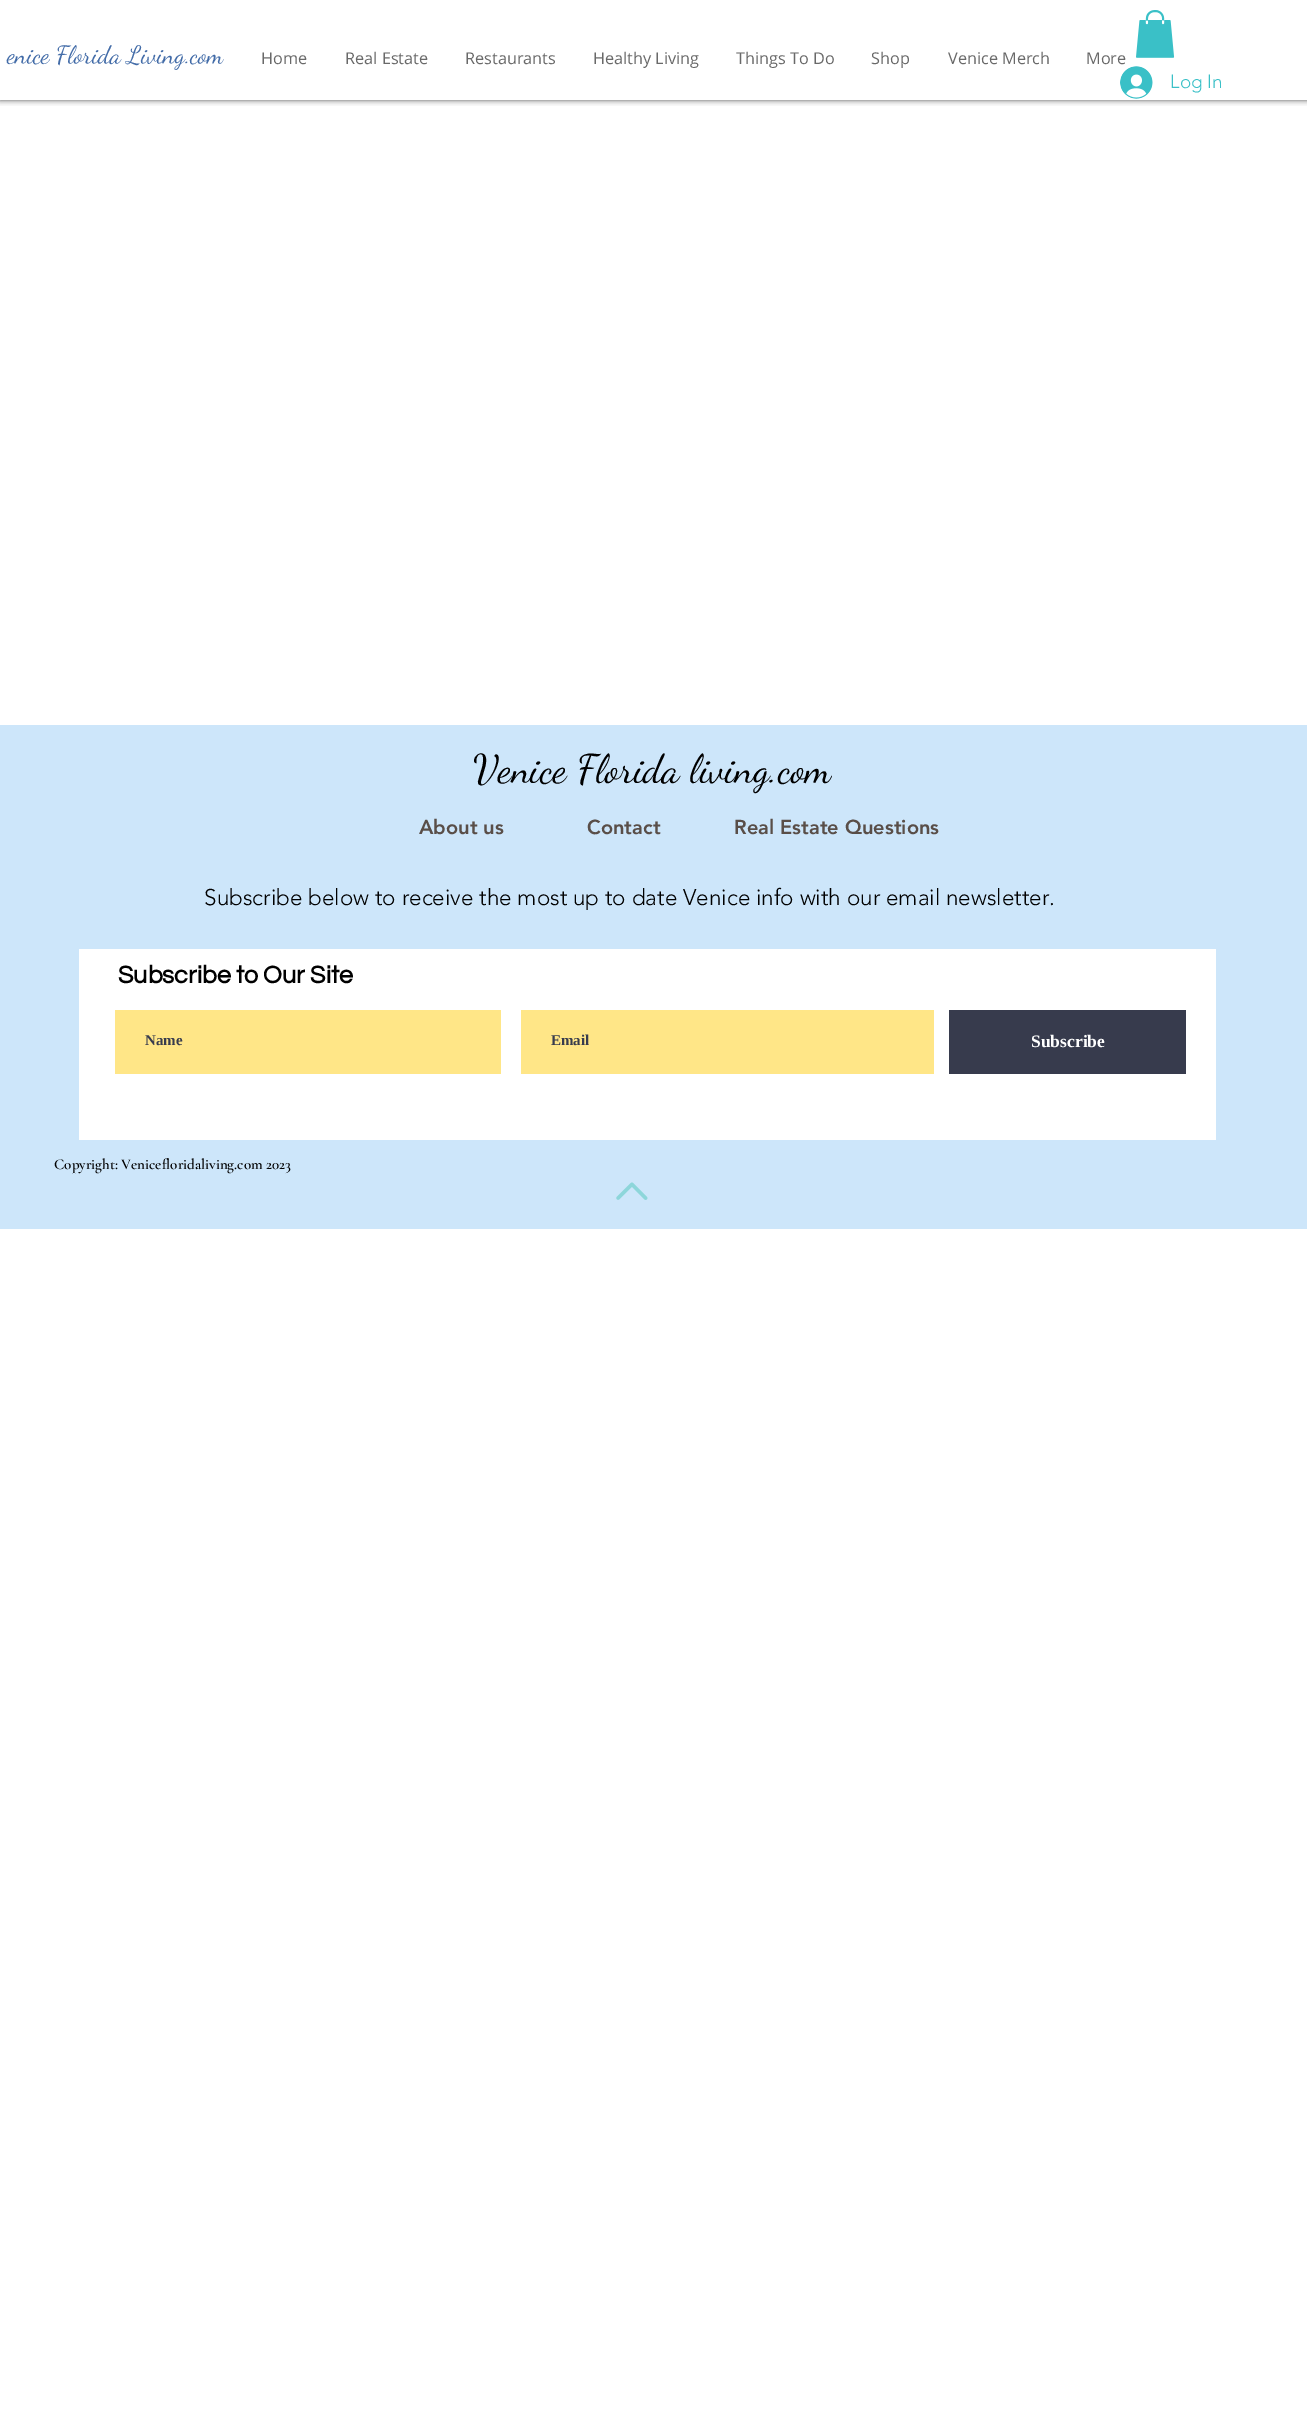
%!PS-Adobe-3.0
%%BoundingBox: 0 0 1307 2430
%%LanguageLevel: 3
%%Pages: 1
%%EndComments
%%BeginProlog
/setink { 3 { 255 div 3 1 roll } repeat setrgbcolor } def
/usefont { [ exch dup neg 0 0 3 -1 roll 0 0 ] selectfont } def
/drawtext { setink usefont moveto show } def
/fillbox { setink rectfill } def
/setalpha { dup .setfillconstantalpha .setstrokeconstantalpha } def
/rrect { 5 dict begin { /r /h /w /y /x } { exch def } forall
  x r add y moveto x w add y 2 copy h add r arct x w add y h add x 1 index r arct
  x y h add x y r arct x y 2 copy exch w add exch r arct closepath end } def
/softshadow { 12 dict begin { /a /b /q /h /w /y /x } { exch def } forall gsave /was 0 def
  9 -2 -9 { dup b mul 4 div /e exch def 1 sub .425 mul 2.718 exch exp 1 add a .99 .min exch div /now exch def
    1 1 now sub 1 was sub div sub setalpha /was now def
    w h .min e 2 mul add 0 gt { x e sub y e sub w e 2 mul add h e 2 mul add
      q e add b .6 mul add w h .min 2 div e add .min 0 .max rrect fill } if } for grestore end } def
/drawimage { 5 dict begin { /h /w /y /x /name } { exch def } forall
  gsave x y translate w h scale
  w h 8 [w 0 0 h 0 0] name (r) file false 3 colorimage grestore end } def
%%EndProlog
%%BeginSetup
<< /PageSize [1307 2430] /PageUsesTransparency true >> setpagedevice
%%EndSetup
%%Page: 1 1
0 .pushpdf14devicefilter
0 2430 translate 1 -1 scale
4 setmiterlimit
0 0 1307 2430 255 255 255 fillbox
gsave
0 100 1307 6 rectclip
0 0 0 setink
0 0 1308 100 0 3 0.7 softshadow
grestore
(enice Florida Living.com) 7 63 /DancingScript-Regular 25 67 108 168 drawtext
(Home) 261 64 /OpenSans-Regular 16.25 105 105 105 drawtext
(Real Estate) 345 64 /OpenSans-Regular 16.25 105 105 105 drawtext
(Restaurants) 465 64 /OpenSans-Regular 16.25 105 105 105 drawtext
(Healthy Living) 593 64 /OpenSans-Regular 16.25 105 105 105 drawtext
(Things To Do) 736 64 /OpenSans-Regular 16.25 105 105 105 drawtext
(Shop) 871 64 /OpenSans-Regular 16.25 105 105 105 drawtext
(Venice Merch) 948 64 /OpenSans-Regular 16.25 105 105 105 drawtext
(More) 1086 64 /OpenSans-Regular 16.25 105 105 105 drawtext
(assets/img1.rgb) 1136 10 39 48 drawimage
(assets/img2.rgb) 1120 66 33 33 drawimage
(Log In) 1170 88 /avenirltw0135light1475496-Light 19 58 192 199 drawtext
0 725 1307 504 205 230 250 fillbox
(Venice Florida living.com) 473 782 /DancingScript-Regular 40 0 0 0 drawtext
(About us) 419 834 /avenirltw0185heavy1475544-Black 20 89 78 72 drawtext
(Contact) 587 834 /avenirltw0185heavy1475544-Black 20 89 78 72 drawtext
(Real Estate Questions) 734 834 /avenirltw0185heavy1475544-Black 20 89 78 72 drawtext
(Subscribe below to receive the most up to date Venice info with our email newsletter.) 204 905 /avenirltw0135light1475496-Light 22.5 0 0 0 drawtext
79 949 1137 191 255 255 255 fillbox
(Subscribe to Our Site) 118 983 /Questrial-Bold 25 0 0 0 drawtext
115 1010 386 64 255 230 135 fillbox
(Name) 145 1045 /LiberationSerif-Bold 15 55 59 77 drawtext
521 1010 413 64 255 230 135 fillbox
(Email) 551 1045 /LiberationSerif-Bold 15 55 59 77 drawtext
949 1010 237 64 55 59 77 fillbox
(Subscribe) 1031 1047 /LiberationSerif-Bold 17.5 255 255 255 drawtext
(Copyright: Venicefloridaliving.com 2023) 54 1169 /CormorantGaramond-SemiBold 15 0 0 0 drawtext
(assets/img3.rgb) 616 1182 32 18 drawimage
.poppdf14devicefilter showpage
%%EOF
